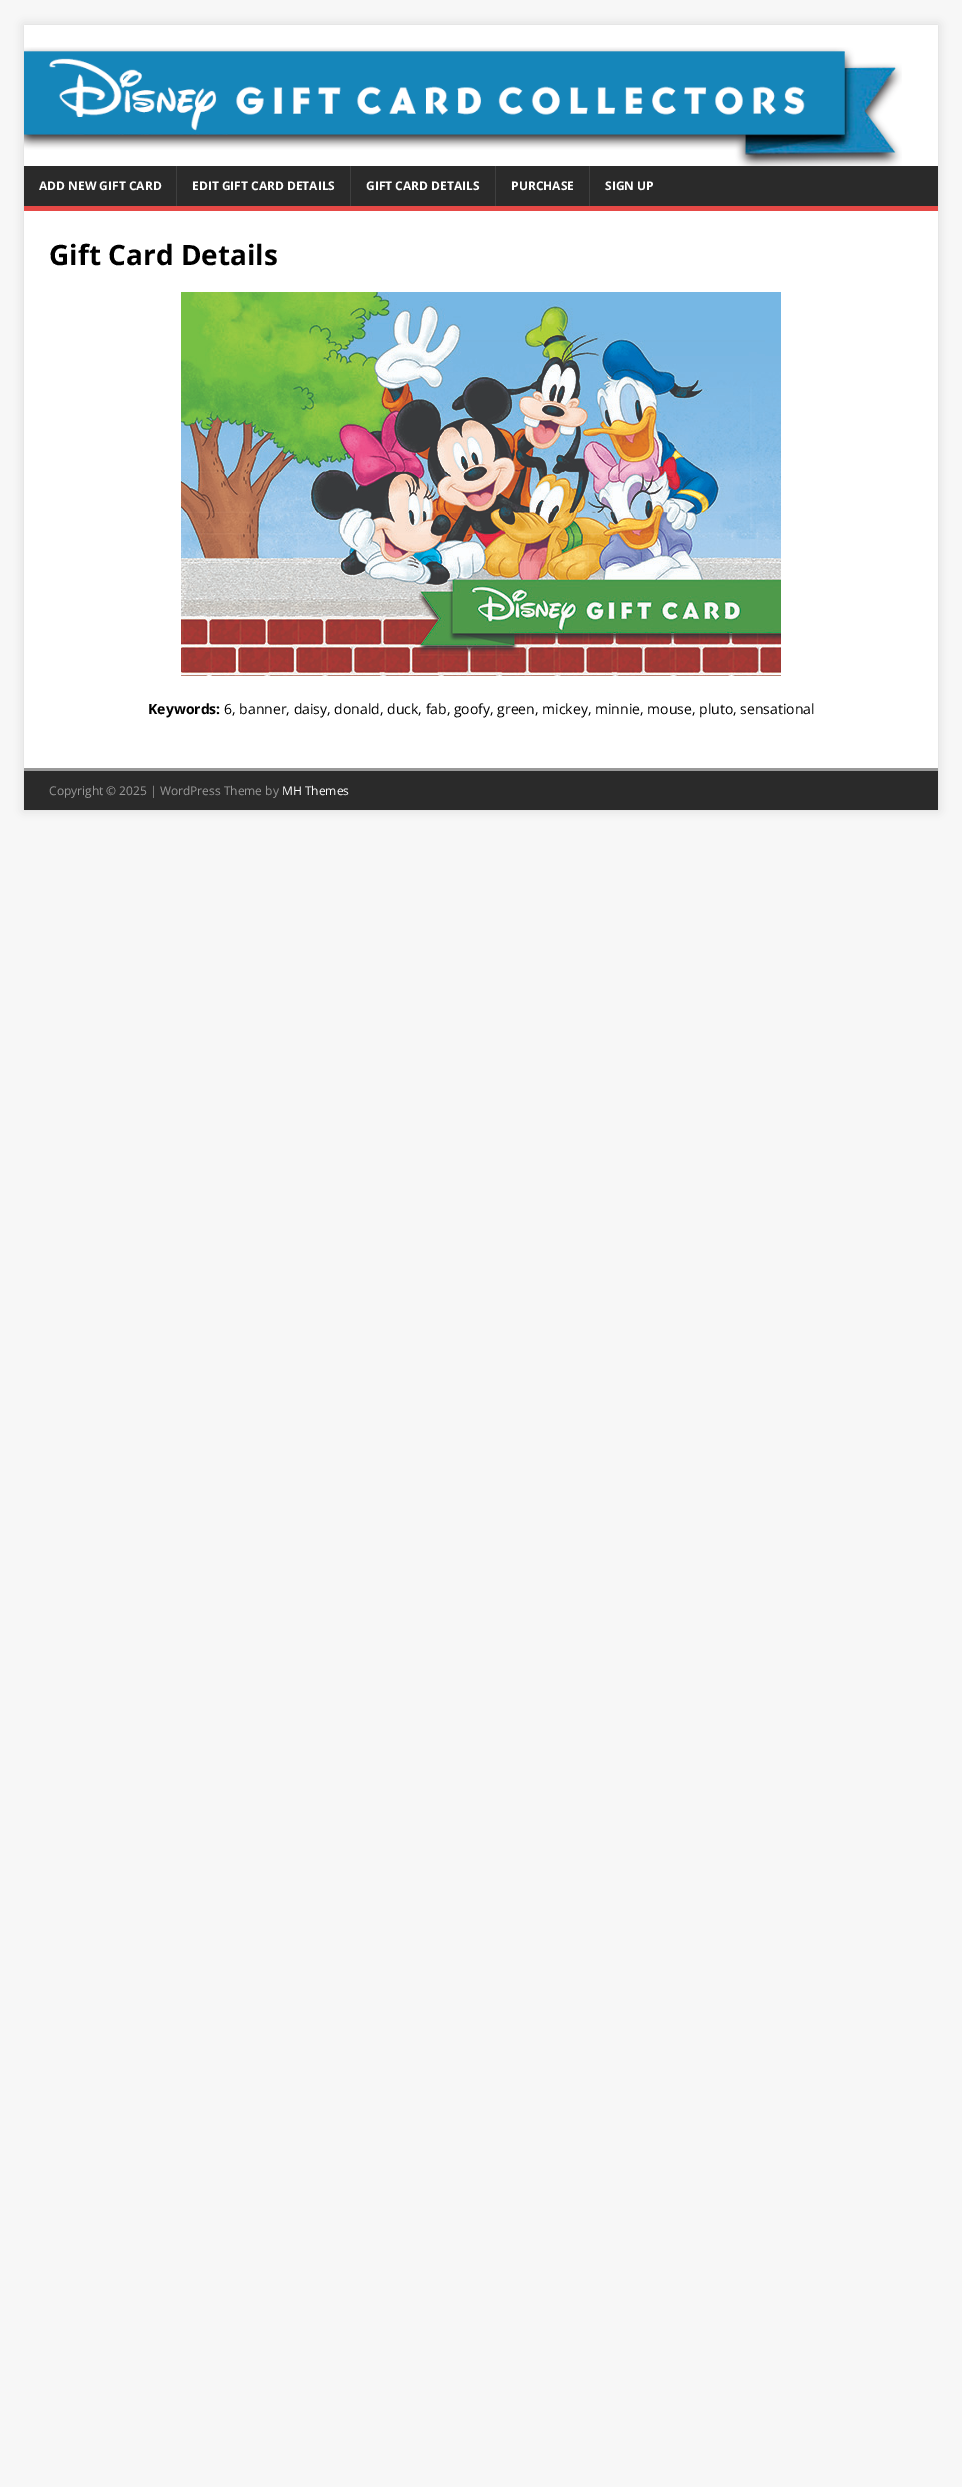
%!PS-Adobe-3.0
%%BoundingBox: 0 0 962 2487
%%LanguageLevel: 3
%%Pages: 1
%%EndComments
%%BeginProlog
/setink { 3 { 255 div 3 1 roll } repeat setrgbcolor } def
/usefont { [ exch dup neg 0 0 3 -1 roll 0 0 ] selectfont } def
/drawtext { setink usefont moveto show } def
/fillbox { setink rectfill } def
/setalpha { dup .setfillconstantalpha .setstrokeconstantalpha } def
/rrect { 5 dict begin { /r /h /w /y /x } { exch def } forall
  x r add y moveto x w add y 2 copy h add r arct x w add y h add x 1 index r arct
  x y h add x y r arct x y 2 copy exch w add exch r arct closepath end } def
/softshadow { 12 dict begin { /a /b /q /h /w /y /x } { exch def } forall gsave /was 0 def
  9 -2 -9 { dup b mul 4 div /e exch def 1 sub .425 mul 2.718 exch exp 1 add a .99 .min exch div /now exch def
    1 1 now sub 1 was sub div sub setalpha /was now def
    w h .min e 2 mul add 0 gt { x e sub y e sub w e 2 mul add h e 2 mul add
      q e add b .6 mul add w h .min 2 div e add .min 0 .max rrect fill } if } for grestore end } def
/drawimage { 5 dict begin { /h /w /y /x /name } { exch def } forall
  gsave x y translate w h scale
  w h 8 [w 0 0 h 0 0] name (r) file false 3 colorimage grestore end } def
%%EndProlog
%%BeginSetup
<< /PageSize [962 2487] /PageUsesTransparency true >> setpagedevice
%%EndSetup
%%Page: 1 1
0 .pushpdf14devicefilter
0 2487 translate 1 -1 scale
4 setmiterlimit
0 0 962 2487 247 247 247 fillbox
50 50 50 setink
24 25 914 785 0 5 0.17 softshadow
24 25 914 141 255 255 255 fillbox
(assets/img1.rgb) 24 47 878 119 drawimage
24 166 914 40 42 42 42 fillbox
24 206 914 5 230 73 70 fillbox
(ADD NEW GIFT CARD) 39 190 /OpenSans-Bold 12 255 255 255 drawtext
176 166 1 40 63 63 63 fillbox
(EDIT GIFT CARD DETAILS) 192 190 /OpenSans-Bold 12 255 255 255 drawtext
350 166 1 40 63 63 63 fillbox
(GIFT CARD DETAILS) 366 190 /OpenSans-Bold 12 255 255 255 drawtext
495 166 1 40 63 63 63 fillbox
(PURCHASE) 511 190 /OpenSans-Bold 12 255 255 255 drawtext
589 166 1 40 63 63 63 fillbox
(SIGN UP) 605 190 /OpenSans-Bold 12 255 255 255 drawtext
24 211 914 557 255 255 255 fillbox
(Gift Card Details) 49 265 /OpenSans-Bold 28 0 0 0 drawtext
(assets/img2.rgb) 181 292 600 384 drawimage
(Keywords:) 148 714 /OpenSans-Bold 14 0 0 0 drawtext
(6, banner, daisy, donald, duck, fab, goofy, green, mickey, minnie, mouse, pluto, sensational) 224 714 /OpenSans-Regular 14 0 0 0 drawtext
24 771 914 39 42 42 42 fillbox
24 768 914 3 153 153 153 fillbox
(Copyright © 2025 | WordPress Theme by) 49 795 /OpenSans-Regular 12 153 153 153 drawtext
(MH Themes) 282 795 /OpenSans-Regular 12 255 255 255 drawtext
.poppdf14devicefilter showpage
%%EOF
